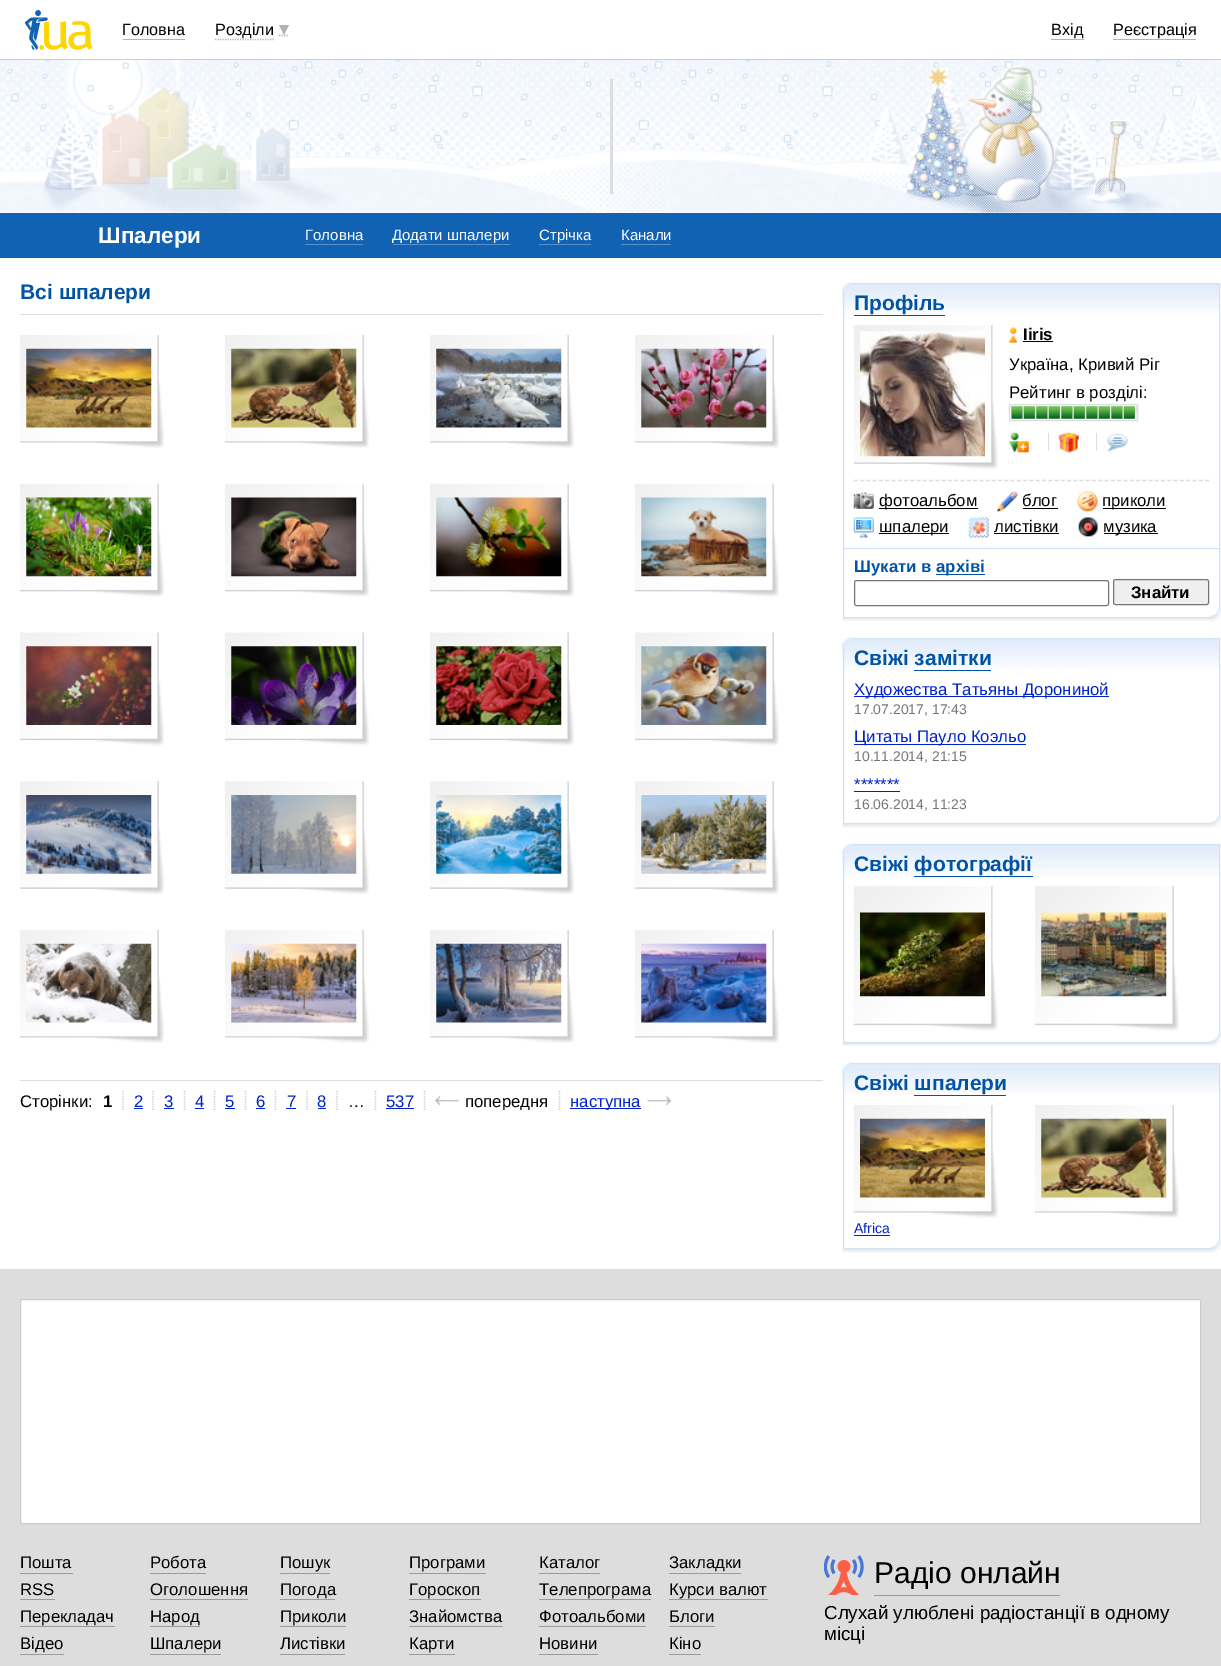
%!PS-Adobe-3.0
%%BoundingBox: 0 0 1221 1666
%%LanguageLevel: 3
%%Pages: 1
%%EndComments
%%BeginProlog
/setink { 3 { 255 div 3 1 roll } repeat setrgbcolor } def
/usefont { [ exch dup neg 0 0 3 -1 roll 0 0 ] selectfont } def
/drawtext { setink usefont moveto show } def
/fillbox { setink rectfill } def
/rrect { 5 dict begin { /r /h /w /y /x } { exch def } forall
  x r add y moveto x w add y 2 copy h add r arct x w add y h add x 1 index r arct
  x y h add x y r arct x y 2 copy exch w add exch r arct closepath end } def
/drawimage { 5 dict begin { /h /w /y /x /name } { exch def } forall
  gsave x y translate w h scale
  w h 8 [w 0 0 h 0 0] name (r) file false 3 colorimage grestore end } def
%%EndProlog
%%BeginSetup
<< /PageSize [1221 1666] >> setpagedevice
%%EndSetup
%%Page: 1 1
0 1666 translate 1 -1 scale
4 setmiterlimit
0 0 1221 1666 255 255 255 fillbox
0 59 1221 1 204 204 204 fillbox
(assets/img1.rgb) 25 10 68 40 drawimage
(Головна) 122 35 /LiberationSans-Regular 16.25 0 0 0 drawtext
123 39 62 1 179 179 179 fillbox
1.2 setlinewidth
[1.25 1.25] 0 setdash
215 39.5 moveto 274 39.5 lineto stroke
279 35.5 moveto 289 35.5 lineto stroke
(Розділи) 215 35 /LiberationSans-Regular 16.25 0 0 0 drawtext
179 179 179 setink
279 25 moveto 289 25 lineto 284 35 lineto closepath fill
(Вхід) 1051 35 /LiberationSans-Regular 16.25 0 0 0 drawtext
1051 39 33 1 179 179 179 fillbox
(Реєстрація) 1113 35 /LiberationSans-Regular 16.25 0 0 0 drawtext
1113 39 83 1 179 179 179 fillbox
(assets/img2.rgb) 0 60 1221 153 drawimage
610 79 3 115 221 221 221 fillbox
0 213 1221 45 17 98 179 fillbox
(Шпалери) 98 243 /LiberationSans-Bold 22.5 255 255 255 drawtext
(Головна) 305 240 /LiberationSans-Regular 15 255 255 255 drawtext
305 244 58 1 88 145 202 fillbox
(Додати шпалери) 392 240 /LiberationSans-Regular 15 255 255 255 drawtext
393 244 117 1 88 145 202 fillbox
(Стрічка) 539 240 /LiberationSans-Regular 15 255 255 255 drawtext
539 244 52 1 88 145 202 fillbox
(Канали) 621 240 /LiberationSans-Regular 15 255 255 255 drawtext
621 244 50 1 88 145 202 fillbox
(Всі шпалери) 20 299 /LiberationSans-Bold 21 0 83 165 drawtext
20 314 803 1 221 221 221 fillbox
(assets/img3.rgb) 20 335 144 113 drawimage
(assets/img4.rgb) 26 348 126 80 drawimage
(assets/img3.rgb) 225 335 144 113 drawimage
(assets/img5.rgb) 231 348 126 80 drawimage
(assets/img3.rgb) 430 335 144 113 drawimage
(assets/img6.rgb) 436 348 126 80 drawimage
(assets/img3.rgb) 635 335 144 113 drawimage
(assets/img7.rgb) 641 348 126 80 drawimage
(assets/img8.rgb) 20 483 144 114 drawimage
(assets/img9.rgb) 26 497 126 80 drawimage
(assets/img8.rgb) 225 483 144 114 drawimage
(assets/img10.rgb) 231 497 126 80 drawimage
(assets/img11.rgb) 430 483 144 114 drawimage
(assets/img12.rgb) 436 497 126 80 drawimage
(assets/img8.rgb) 635 483 144 114 drawimage
(assets/img13.rgb) 641 497 126 80 drawimage
(assets/img14.rgb) 20 632 144 114 drawimage
(assets/img15.rgb) 26 646 126 79 drawimage
(assets/img14.rgb) 225 632 144 114 drawimage
(assets/img16.rgb) 231 646 126 79 drawimage
(assets/img14.rgb) 430 632 144 114 drawimage
(assets/img17.rgb) 436 646 126 79 drawimage
(assets/img14.rgb) 635 632 144 114 drawimage
(assets/img18.rgb) 641 646 126 79 drawimage
(assets/img19.rgb) 20 781 144 113 drawimage
(assets/img20.rgb) 26 795 126 79 drawimage
(assets/img19.rgb) 225 781 144 113 drawimage
(assets/img21.rgb) 231 795 126 79 drawimage
(assets/img19.rgb) 430 781 144 113 drawimage
(assets/img22.rgb) 436 795 126 79 drawimage
(assets/img19.rgb) 635 781 144 113 drawimage
(assets/img23.rgb) 641 795 126 79 drawimage
(assets/img3.rgb) 20 930 144 113 drawimage
(assets/img24.rgb) 26 943 126 80 drawimage
(assets/img3.rgb) 225 930 144 113 drawimage
(assets/img25.rgb) 231 943 126 80 drawimage
(assets/img3.rgb) 430 930 144 113 drawimage
(assets/img26.rgb) 436 943 126 80 drawimage
(assets/img3.rgb) 635 930 144 113 drawimage
(assets/img27.rgb) 641 943 126 80 drawimage
20 1080 803 1 221 221 221 fillbox
(Сторінки:) 20 1107 /LiberationSans-Regular 16.75 0 0 0 drawtext
204 204 204 setink
123 1091 moveto 123 1110 lineto stroke
(1) 103 1107 /LiberationSans-Bold 16.75 0 0 0 drawtext
204 204 204 setink
153 1091 moveto 153 1110 lineto stroke
(2) 134 1107 /LiberationSans-Regular 16.75 0 34 204 drawtext
134 1108 9 1 0 34 204 fillbox
204 204 204 setink
184.5 1091 moveto 184.5 1110 lineto stroke
(3) 164 1107 /LiberationSans-Regular 16.75 0 34 204 drawtext
164 1108 10 1 0 34 204 fillbox
204 204 204 setink
214.5 1091 moveto 214.5 1110 lineto stroke
(4) 195 1107 /LiberationSans-Regular 16.75 0 34 204 drawtext
195 1108 9 1 0 34 204 fillbox
204 204 204 setink
245.5 1091 moveto 245.5 1110 lineto stroke
(5) 225 1107 /LiberationSans-Regular 16.75 0 34 204 drawtext
225 1108 10 1 0 34 204 fillbox
204 204 204 setink
275.5 1091 moveto 275.5 1110 lineto stroke
(6) 256 1107 /LiberationSans-Regular 16.75 0 34 204 drawtext
256 1108 9 1 0 34 204 fillbox
204 204 204 setink
307 1091 moveto 307 1110 lineto stroke
(7) 287 1107 /LiberationSans-Regular 16.75 0 34 204 drawtext
286 1108 10 1 0 34 204 fillbox
204 204 204 setink
337 1091 moveto 337 1110 lineto stroke
(8) 317 1107 /LiberationSans-Regular 16.75 0 34 204 drawtext
318 1108 8 1 0 34 204 fillbox
204 204 204 setink
375.5 1091 moveto 375.5 1110 lineto stroke
(…) 348 1107 /LiberationSans-Regular 16.75 0 0 0 drawtext
204 204 204 setink
424.5 1091 moveto 424.5 1110 lineto stroke
(537) 386 1107 /LiberationSans-Regular 16.75 0 34 204 drawtext
386 1108 28 1 0 34 204 fillbox
204 204 204 setink
559.5 1091 moveto 559.5 1110 lineto stroke
(assets/img28.rgb) 435 1096 24 9 drawimage
gsave
0 1091 673 19 rectclip
(попередня) 465 1107 /LiberationSans-Regular 16.75 0 0 0 drawtext
grestore
570 1108 71 1 0 34 204 fillbox
gsave
0 1091 673 19 rectclip
(наступна) 570 1107 /LiberationSans-Regular 16.75 0 34 204 drawtext
grestore
(assets/img29.rgb) 647 1096 25 9 drawimage
(assets/img30.rgb) 842 618 368 3 drawimage
(assets/img32.rgb) 842 283 377 32 drawimage
206 227 247 setink
1 setlinewidth
[] 0 setdash
843.5 283.5 376 334 rectstroke
(assets/img31.rgb) 842 282 11 11 drawimage
(Профіль) 854 310 /LiberationSans-Bold 21 0 83 165 drawtext
854 315 91 1 0 83 165 fillbox
(assets/img33.rgb) 854 325 144 144 drawimage
(assets/img34.rgb) 860 331 125 126 drawimage
(assets/img35.rgb) 1008 327 10 16 drawimage
(Iiris) 1023 340 /LiberationSans-Bold 16.75 0 0 0 drawtext
1023 341 30 1 0 0 0 fillbox
(Україна, Кривий Ріг) 1009 370 /LiberationSans-Regular 16.75 0 0 0 drawtext
(Рейтинг в розділі:) 1009 398 /LiberationSans-Regular 16.75 0 0 0 drawtext
(assets/img36.rgb) 1008 406 129 13 drawimage
221 221 221 setink
1009.5 404.5 128 16 rectstroke
(assets/img37.rgb) 1011 406 124 13 drawimage
(assets/img38.rgb) 1008 432 21 21 drawimage
1048 433 1 18 221 221 221 fillbox
(assets/img39.rgb) 1058 432 21 21 drawimage
1096 433 1 18 221 221 221 fillbox
(assets/img40.rgb) 1107 433 21 19 drawimage
1.2 setlinewidth
[3.75 2.52] 0 setdash
854 480.5 moveto 1209 480.5 lineto stroke
(assets/img41.rgb) 853 492 21 17 drawimage
879 508 99 1 0 0 0 fillbox
(фотоальбом) 879 506 /LiberationSans-Regular 16.75 0 0 0 drawtext
(assets/img42.rgb) 997 491 21 21 drawimage
(блог) 1022 506 /LiberationSans-Regular 16.75 0 0 0 drawtext
1023 508 35 1 0 0 0 fillbox
(assets/img43.rgb) 1077 491 21 21 drawimage
1103 508 63 1 0 0 0 fillbox
(приколи) 1102 506 /LiberationSans-Regular 16.75 0 0 0 drawtext
(assets/img44.rgb) 853 517 21 21 drawimage
879 533 70 1 0 0 0 fillbox
(шпалери) 879 532 /LiberationSans-Regular 16.75 0 0 0 drawtext
(assets/img45.rgb) 968 517 21 21 drawimage
(листівки) 994 532 /LiberationSans-Regular 16.75 0 0 0 drawtext
994 533 65 1 0 0 0 fillbox
(assets/img46.rgb) 1078 517 20 20 drawimage
1104 533 54 1 0 0 0 fillbox
(музика) 1103 532 /LiberationSans-Regular 16.75 0 0 0 drawtext
844 548 375 1 206 227 247 fillbox
(Шукати в) 854 572 /LiberationSans-Bold 16.75 0 83 165 drawtext
936 574 49 1 0 83 165 fillbox
(архіві) 936 572 /LiberationSans-Bold 16.75 0 83 165 drawtext
118 118 118 setink
1 setlinewidth
[] 0 setdash
854.5 580.5 254 25 2 rrect stroke
239 239 239 setink
1113.5 579.5 95 25 2 rrect gsave fill grestore
118 118 118 setink
stroke
(Знайти) 1131 598 /LiberationSans-Bold 16.75 0 0 0 drawtext
(assets/img47.rgb) 1210 607 10 15 drawimage
(assets/img48.rgb) 842 824 368 4 drawimage
(assets/img49.rgb) 842 638 377 32 drawimage
206 227 247 setink
843.5 638.5 376 185 rectstroke
(assets/img31.rgb) 842 637 11 11 drawimage
(Свіжі замітки) 854 665 /LiberationSans-Bold 21 0 83 165 drawtext
914 670 77 1 0 83 165 fillbox
854 696 255 1 0 34 204 fillbox
(Художества Татьяны Дорониной) 854 695 /LiberationSans-Regular 16.75 0 34 204 drawtext
(17.07.2017, 17:43) 854 714 /LiberationSans-Regular 14 119 119 119 drawtext
854 744 172 1 0 34 204 fillbox
(Цитаты Пауло Коэльо) 854 742 /LiberationSans-Regular 16.75 0 34 204 drawtext
(10.11.2014, 21:15) 854 761 /LiberationSans-Regular 14 119 119 119 drawtext
(*******) 854 790 /LiberationSans-Regular 16.75 0 34 204 drawtext
854 791 46 1 0 34 204 fillbox
(16.06.2014, 11:23) 854 809 /LiberationSans-Regular 14 119 119 119 drawtext
(assets/img50.rgb) 1210 814 10 14 drawimage
(assets/img30.rgb) 842 1043 368 3 drawimage
(assets/img52.rgb) 842 845 377 31 drawimage
206 227 247 setink
843.5 844.5 376 198 rectstroke
(assets/img51.rgb) 842 843 11 11 drawimage
(Свіжі фотографії) 854 871 /LiberationSans-Bold 21 0 83 165 drawtext
914 876 119 1 0 83 165 fillbox
(assets/img53.rgb) 853 886 145 145 drawimage
(assets/img54.rgb) 860 912 125 85 drawimage
(assets/img55.rgb) 1035 886 144 145 drawimage
(assets/img56.rgb) 1041 912 126 85 drawimage
(assets/img47.rgb) 1210 1032 10 15 drawimage
(assets/img48.rgb) 842 1249 368 4 drawimage
(assets/img49.rgb) 842 1063 377 32 drawimage
206 227 247 setink
843.5 1063.5 376 185 rectstroke
(assets/img31.rgb) 842 1062 11 11 drawimage
(Свіжі шпалери) 854 1090 /LiberationSans-Bold 21 0 83 165 drawtext
914 1095 92 1 0 83 165 fillbox
(assets/img57.rgb) 1035 1105 144 113 drawimage
(assets/img58.rgb) 1041 1118 126 80 drawimage
(assets/img59.rgb) 853 1105 145 113 drawimage
(assets/img60.rgb) 860 1118 125 80 drawimage
(Africa) 854 1233 /LiberationSans-Regular 14 0 34 204 drawtext
854 1235 36 1 0 34 204 fillbox
(assets/img50.rgb) 1210 1239 10 14 drawimage
0 1269 1221 397 221 221 221 fillbox
255 255 255 setink
20.5 1299.5 moveto 1200.5 1299.5 lineto 1200.5 1523.5 lineto 20.5 1523.5 lineto closepath gsave fill grestore
204 204 204 setink
stroke
(Пошта) 20 1568 /LiberationSans-Regular 16.75 0 0 0 drawtext
20 1573 53 1 155 155 155 fillbox
(Робота) 150 1568 /LiberationSans-Regular 16.75 0 0 0 drawtext
150 1573 56 1 155 155 155 fillbox
(Пошук) 280 1568 /LiberationSans-Regular 16.75 0 0 0 drawtext
280 1573 50 1 155 155 155 fillbox
(Програми) 409 1568 /LiberationSans-Regular 16.75 0 0 0 drawtext
409 1573 77 1 155 155 155 fillbox
(Каталог) 539 1568 /LiberationSans-Regular 16.75 0 0 0 drawtext
539 1573 61 1 155 155 155 fillbox
(Закладки) 669 1568 /LiberationSans-Regular 16.75 0 0 0 drawtext
669 1573 72 1 155 155 155 fillbox
(RSS) 20 1595 /LiberationSans-Regular 16.75 0 0 0 drawtext
20 1599 35 1 155 155 155 fillbox
(Оголошення) 150 1595 /LiberationSans-Regular 16.75 0 0 0 drawtext
150 1599 98 1 155 155 155 fillbox
(Погода) 280 1595 /LiberationSans-Regular 16.75 0 0 0 drawtext
280 1599 55 1 155 155 155 fillbox
(Гороскоп) 409 1595 /LiberationSans-Regular 16.75 0 0 0 drawtext
409 1599 72 1 155 155 155 fillbox
(Телепрограма) 539 1595 /LiberationSans-Regular 16.75 0 0 0 drawtext
539 1599 112 1 155 155 155 fillbox
(Курси валют) 669 1595 /LiberationSans-Regular 16.75 0 0 0 drawtext
669 1599 99 1 155 155 155 fillbox
(Перекладач) 20 1622 /LiberationSans-Regular 16.75 0 0 0 drawtext
20 1626 95 1 155 155 155 fillbox
(Народ) 150 1622 /LiberationSans-Regular 16.75 0 0 0 drawtext
150 1626 50 1 155 155 155 fillbox
(Приколи) 280 1622 /LiberationSans-Regular 16.75 0 0 0 drawtext
280 1626 66 1 155 155 155 fillbox
(Знайомства) 409 1622 /LiberationSans-Regular 16.75 0 0 0 drawtext
409 1626 94 1 155 155 155 fillbox
(Фотоальбоми) 539 1622 /LiberationSans-Regular 16.75 0 0 0 drawtext
539 1626 107 1 155 155 155 fillbox
(Блоги) 669 1622 /LiberationSans-Regular 16.75 0 0 0 drawtext
669 1626 46 1 155 155 155 fillbox
(Відео) 20 1649 /LiberationSans-Regular 16.75 0 0 0 drawtext
20 1654 44 1 155 155 155 fillbox
(Шпалери) 150 1649 /LiberationSans-Regular 16.75 0 0 0 drawtext
150 1654 71 1 155 155 155 fillbox
(Листівки) 280 1649 /LiberationSans-Regular 16.75 0 0 0 drawtext
280 1654 65 1 155 155 155 fillbox
(Карти) 409 1649 /LiberationSans-Regular 16.75 0 0 0 drawtext
409 1654 46 1 155 155 155 fillbox
(Новини) 539 1649 /LiberationSans-Regular 16.75 0 0 0 drawtext
539 1654 59 1 155 155 155 fillbox
(Кіно) 669 1649 /LiberationSans-Regular 16.75 0 0 0 drawtext
669 1654 32 1 155 155 155 fillbox
874 1595 186 1 155 155 155 fillbox
(assets/img61.rgb) 824 1555 40 40 drawimage
(Радіо онлайн) 874 1583 /LiberationSans-Regular 30 0 0 0 drawtext
(Слухай улюблені радіостанції в одному) 824 1619 /LiberationSans-Regular 18.75 0 0 0 drawtext
(місці) 824 1640 /LiberationSans-Regular 18.75 0 0 0 drawtext
showpage
%%EOF
